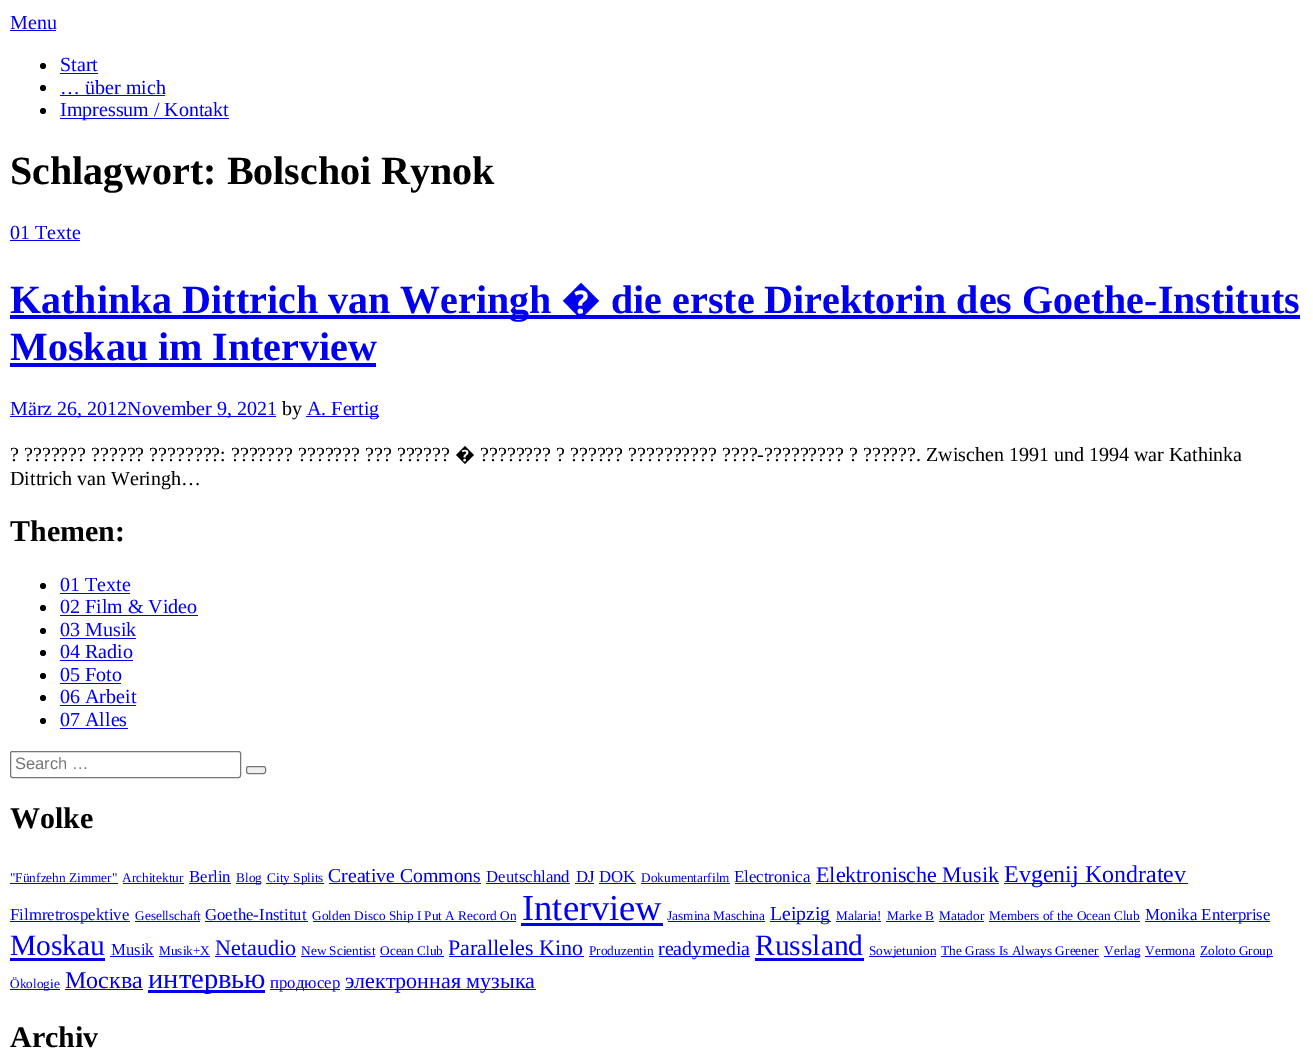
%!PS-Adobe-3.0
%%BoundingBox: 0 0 1313 1049
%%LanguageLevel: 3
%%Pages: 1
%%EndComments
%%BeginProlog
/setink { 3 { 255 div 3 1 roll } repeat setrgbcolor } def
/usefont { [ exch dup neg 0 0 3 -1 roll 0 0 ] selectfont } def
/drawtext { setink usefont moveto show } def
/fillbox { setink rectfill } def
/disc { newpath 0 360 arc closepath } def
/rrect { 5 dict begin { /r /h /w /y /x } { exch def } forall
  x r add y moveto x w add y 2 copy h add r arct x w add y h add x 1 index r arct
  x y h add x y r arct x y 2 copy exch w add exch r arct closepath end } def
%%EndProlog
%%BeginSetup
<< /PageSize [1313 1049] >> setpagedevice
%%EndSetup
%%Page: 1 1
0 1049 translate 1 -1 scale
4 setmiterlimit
0 0 1313 1049 255 255 255 fillbox
(Menu) 10 29 /LiberationSerif-Regular 20 0 0 238 drawtext
10 30 46 1 0 0 238 fillbox
0 0 0 setink
43 66 3 disc fill
(Start) 60 71 /LiberationSerif-Regular 20 0 0 238 drawtext
60 73 38 1 0 0 238 fillbox
0 0 0 setink
43 88 3 disc fill
(… über mich) 60 94 /LiberationSerif-Regular 20 0 0 238 drawtext
60 95 105 1 0 0 238 fillbox
0 0 0 setink
43 111 3 disc fill
60 118 169 1 0 0 238 fillbox
(Impressum / Kontakt) 60 116 /LiberationSerif-Regular 20 0 0 238 drawtext
(Schlagwort: Bolschoi Rynok) 10 184 /LiberationSerif-Bold 40 0 0 0 drawtext
(01 Texte) 10 239 /LiberationSerif-Regular 20 0 0 238 drawtext
10 240 70 1 0 0 238 fillbox
10 315 1290 4 0 0 238 fillbox
(Kathinka Dittrich van Weringh) 10 313 /LiberationSerif-Bold 40 0 0 238 drawtext
(�) 561 313 /NotoSans-Bold 40 0 0 238 drawtext
(die erste Direktorin des Goethe-Instituts) 611 313 /LiberationSerif-Bold 40 0 0 238 drawtext
(Moskau im Interview) 10 360 /LiberationSerif-Bold 40 0 0 238 drawtext
10 363 366 4 0 0 238 fillbox
10 416 266 1 0 0 238 fillbox
(März 26, 2012November 9, 2021) 10 415 /LiberationSerif-Regular 20 0 0 238 drawtext
(by) 282 415 /LiberationSerif-Regular 20 0 0 0 drawtext
306 416 73 1 0 0 238 fillbox
(A. Fertig) 307 415 /LiberationSerif-Regular 20 0 0 238 drawtext
(? ??????? ?????? ????????: ??????? ??????? ??? ??????) 10 461 /LiberationSerif-Regular 20 0 0 0 drawtext
(�) 455 461 /NotoSans-Regular 20 0 0 0 drawtext
(???????? ? ?????? ?????????? ????-????????? ? ??????. Zwischen 1991 und 1994 war Kathinka) 480 461 /LiberationSerif-Regular 20 0 0 0 drawtext
(Dittrich van Weringh…) 10 485 /LiberationSerif-Regular 20 0 0 0 drawtext
(Themen:) 10 541 /LiberationSerif-Bold 30 0 0 0 drawtext
43 586 3 disc fill
(01 Texte) 60 591 /LiberationSerif-Regular 20 0 0 238 drawtext
60 593 70 1 0 0 238 fillbox
0 0 0 setink
43 608 3 disc fill
(02 Film & Video) 60 613 /LiberationSerif-Regular 20 0 0 238 drawtext
60 615 138 1 0 0 238 fillbox
0 0 0 setink
43 631 3 disc fill
(03 Musik) 60 636 /LiberationSerif-Regular 20 0 0 238 drawtext
60 638 76 1 0 0 238 fillbox
0 0 0 setink
43 653 3 disc fill
(04 Radio) 60 658 /LiberationSerif-Regular 20 0 0 238 drawtext
60 660 73 1 0 0 238 fillbox
0 0 0 setink
43 676 3 disc fill
(05 Foto) 60 681 /LiberationSerif-Regular 20 0 0 238 drawtext
60 683 61 1 0 0 238 fillbox
0 0 0 setink
43 698 3 disc fill
(06 Arbeit) 60 703 /LiberationSerif-Regular 20 0 0 238 drawtext
60 705 76 1 0 0 238 fillbox
0 0 0 setink
43 721 3 disc fill
(07 Alles) 60 726 /LiberationSerif-Regular 20 0 0 238 drawtext
60 728 68 1 0 0 238 fillbox
118 118 118 setink
10.5 751.5 230 26 2 rrect stroke
(Search …) 15 769 /LiberationSans-Regular 16.5 117 117 117 drawtext
239 239 239 setink
246.5 766.5 19 7 2 rrect gsave fill grestore
118 118 118 setink
stroke
(Wolke) 10 828 /LiberationSerif-Bold 30 0 0 0 drawtext
("Fünfzehn Zimmer") 10 882 /LiberationSerif-Regular 13.3 0 0 238 drawtext
10 883 108 1 0 0 238 fillbox
(Architektur) 122 882 /LiberationSerif-Regular 13.3 0 0 238 drawtext
123 883 61 1 0 0 238 fillbox
(Berlin) 189 882 /LiberationSerif-Regular 16.75 0 0 238 drawtext
189 883 42 1 0 0 238 fillbox
236 883 25 1 0 0 238 fillbox
(Blog) 236 882 /LiberationSerif-Regular 13.3 0 0 238 drawtext
266 883 58 1 0 0 238 fillbox
(City Splits) 267 882 /LiberationSerif-Regular 13.3 0 0 238 drawtext
(Creative Commons) 328 882 /LiberationSerif-Regular 19.75 0 0 238 drawtext
329 883 152 1 0 0 238 fillbox
(Deutschland) 486 882 /LiberationSerif-Regular 16.75 0 0 238 drawtext
486 883 84 1 0 0 238 fillbox
(DJ) 576 882 /LiberationSerif-Regular 16.75 0 0 238 drawtext
575 883 19 1 0 0 238 fillbox
(DOK) 599 882 /LiberationSerif-Regular 16.75 0 0 238 drawtext
599 883 37 1 0 0 238 fillbox
(Dokumentarfilm) 641 882 /LiberationSerif-Regular 13.3 0 0 238 drawtext
641 883 89 1 0 0 238 fillbox
(Electronica) 734 882 /LiberationSerif-Regular 16.75 0 0 238 drawtext
735 883 76 1 0 0 238 fillbox
(Elektronische Musik) 816 882 /LiberationSerif-Regular 22 0 0 238 drawtext
816 883 183 1 0 0 238 fillbox
1004 883 184 1 0 0 238 fillbox
(Evgenij Kondratev) 1004 882 /LiberationSerif-Regular 24 0 0 238 drawtext
10 921 120 1 0 0 238 fillbox
(Filmretrospektive) 10 920 /LiberationSerif-Regular 16.75 0 0 238 drawtext
(Gesellschaft) 135 920 /LiberationSerif-Regular 13.3 0 0 238 drawtext
135 921 65 1 0 0 238 fillbox
(Goethe-Institut) 205 920 /LiberationSerif-Regular 16.75 0 0 238 drawtext
205 921 103 1 0 0 238 fillbox
313 921 203 1 0 0 238 fillbox
(Golden Disco Ship I Put A Record On) 312 920 /LiberationSerif-Regular 13.3 0 0 238 drawtext
(Interview) 522 920 /LiberationSerif-Regular 36.5 0 0 238 drawtext
521 923 142 3 0 0 238 fillbox
(Jasmina Maschina) 667 920 /LiberationSerif-Regular 13.3 0 0 238 drawtext
668 921 97 1 0 0 238 fillbox
770 921 61 1 0 0 238 fillbox
(Leipzig) 770 920 /LiberationSerif-Regular 19.75 0 0 238 drawtext
(Malaria!) 836 920 /LiberationSerif-Regular 13.3 0 0 238 drawtext
836 921 45 1 0 0 238 fillbox
(Marke B) 887 920 /LiberationSerif-Regular 13.3 0 0 238 drawtext
886 921 48 1 0 0 238 fillbox
(Matador) 939 920 /LiberationSerif-Regular 13.3 0 0 238 drawtext
939 921 45 1 0 0 238 fillbox
(Members of the Ocean Club) 989 920 /LiberationSerif-Regular 13.3 0 0 238 drawtext
989 921 151 1 0 0 238 fillbox
1145 921 125 1 0 0 238 fillbox
(Monika Enterprise) 1145 920 /LiberationSerif-Regular 16.75 0 0 238 drawtext
(Moskau) 10 955 /LiberationSerif-Regular 29.5 0 0 238 drawtext
10 958 95 3 0 0 238 fillbox
(Musik) 111 955 /LiberationSerif-Regular 16.75 0 0 238 drawtext
110 956 44 1 0 0 238 fillbox
(Musik+X) 159 955 /LiberationSerif-Regular 13.3 0 0 238 drawtext
159 956 51 1 0 0 238 fillbox
(Netaudio) 215 955 /LiberationSerif-Regular 22 0 0 238 drawtext
215 956 81 1 0 0 238 fillbox
(New Scientist) 301 955 /LiberationSerif-Regular 13.3 0 0 238 drawtext
301 956 74 1 0 0 238 fillbox
(Ocean Club) 380 955 /LiberationSerif-Regular 13.3 0 0 238 drawtext
380 956 64 1 0 0 238 fillbox
(Paralleles Kino) 448 955 /LiberationSerif-Regular 22 0 0 238 drawtext
449 956 135 1 0 0 238 fillbox
(Produzentin) 589 955 /LiberationSerif-Regular 13.3 0 0 238 drawtext
589 956 65 1 0 0 238 fillbox
659 956 91 1 0 0 238 fillbox
(readymedia) 658 955 /LiberationSerif-Regular 19.75 0 0 238 drawtext
(Russland) 755 955 /LiberationSerif-Regular 29.5 0 0 238 drawtext
755 958 109 3 0 0 238 fillbox
869 956 67 1 0 0 238 fillbox
(Sowjetunion) 869 955 /LiberationSerif-Regular 13.3 0 0 238 drawtext
941 956 158 1 0 0 238 fillbox
(The Grass Is Always Greener) 941 955 /LiberationSerif-Regular 13.3 0 0 238 drawtext
1104 956 36 1 0 0 238 fillbox
(Verlag) 1104 955 /LiberationSerif-Regular 13.3 0 0 238 drawtext
(Vermona) 1145 955 /LiberationSerif-Regular 13.3 0 0 238 drawtext
1145 956 50 1 0 0 238 fillbox
1200 956 73 1 0 0 238 fillbox
(Zoloto Group) 1200 955 /LiberationSerif-Regular 13.3 0 0 238 drawtext
10 989 50 1 0 0 238 fillbox
(Ökologie) 10 988 /LiberationSerif-Regular 13.3 0 0 238 drawtext
(Москва) 65 988 /LiberationSerif-Regular 24 0 0 238 drawtext
65 989 78 1 0 0 238 fillbox
148 990 117 3 0 0 238 fillbox
(интервью) 148 988 /LiberationSerif-Regular 28.5 0 0 238 drawtext
270 989 70 1 0 0 238 fillbox
(продюсер) 270 988 /LiberationSerif-Regular 16.75 0 0 238 drawtext
345 989 191 1 0 0 238 fillbox
(электронная музыка) 345 988 /LiberationSerif-Regular 22 0 0 238 drawtext
(Archiv) 10 1047 /LiberationSerif-Bold 30 0 0 0 drawtext
showpage
%%EOF
